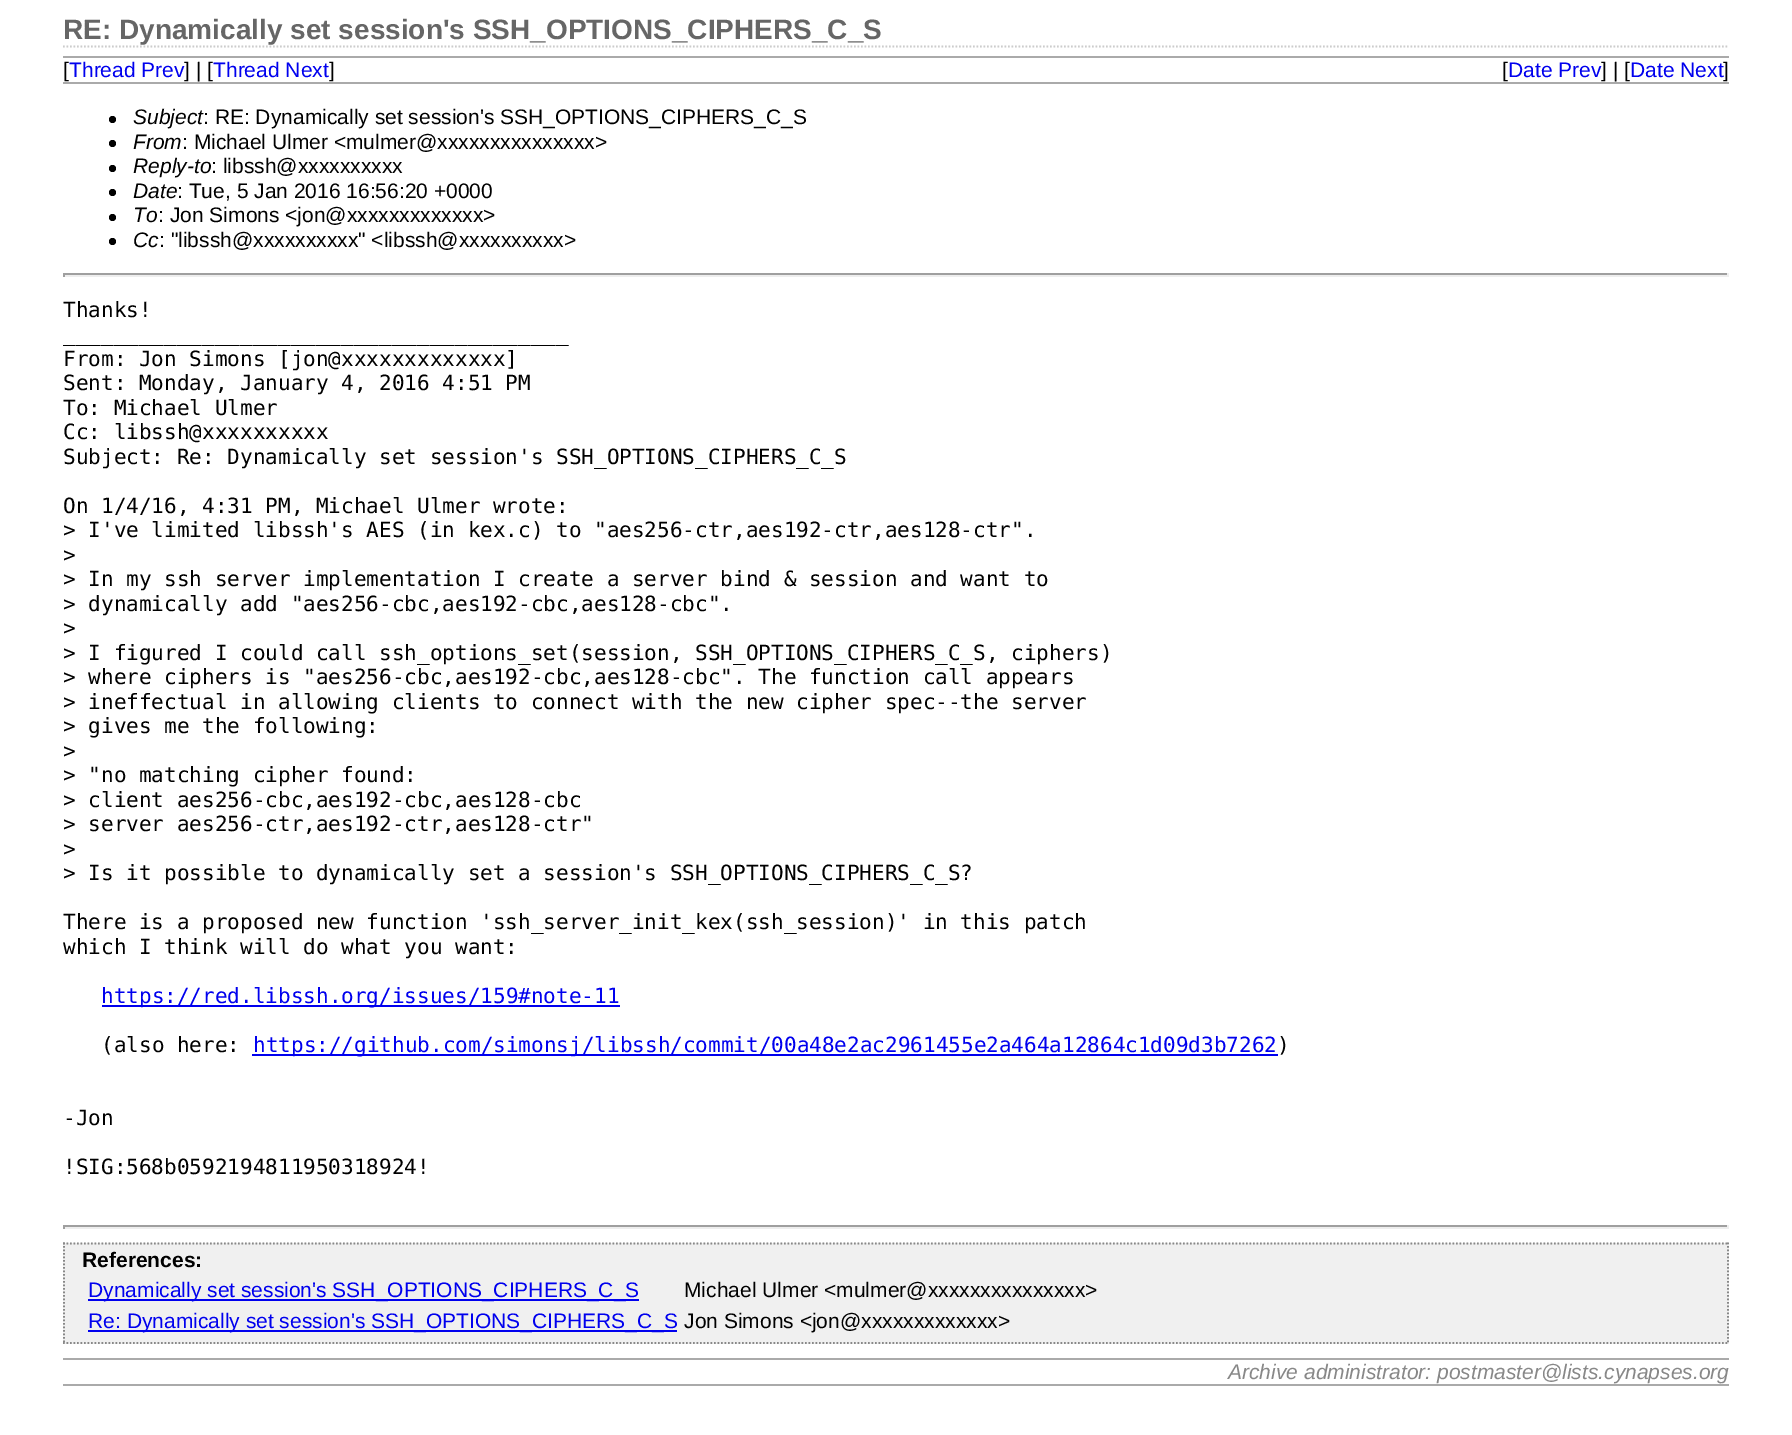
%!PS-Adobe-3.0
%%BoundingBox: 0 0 1792 1435
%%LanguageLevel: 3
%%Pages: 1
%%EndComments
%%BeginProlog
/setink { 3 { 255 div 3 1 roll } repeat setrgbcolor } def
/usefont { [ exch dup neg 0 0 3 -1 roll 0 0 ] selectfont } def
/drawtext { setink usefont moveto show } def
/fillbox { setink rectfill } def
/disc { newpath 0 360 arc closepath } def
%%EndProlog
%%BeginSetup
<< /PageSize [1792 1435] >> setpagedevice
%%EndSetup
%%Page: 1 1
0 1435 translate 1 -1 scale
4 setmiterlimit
0 0 1792 1435 255 255 255 fillbox
204 204 204 setink
1.8 setlinewidth
[1.75 1.75] 0 setdash
63 46.5 moveto 1729 46.5 lineto stroke
(RE: Dynamically set session's SSH_OPTIONS_CIPHERS_C_S) 63 39 /LiberationSans-Bold 28 102 102 102 drawtext
63 56 1666 2 170 170 170 fillbox
63 82 1666 2 170 170 170 fillbox
([) 63 77 /LiberationSans-Regular 21 0 0 0 drawtext
(Thread Prev) 69 77 /LiberationSans-Regular 21 0 0 238 drawtext
(] | [) 184 77 /LiberationSans-Regular 21 0 0 0 drawtext
(Thread Next) 213 77 /LiberationSans-Regular 21 0 0 238 drawtext
(]) 329 77 /LiberationSans-Regular 21 0 0 0 drawtext
([) 1502 77 /LiberationSans-Regular 21 0 0 0 drawtext
(Date Prev) 1508 77 /LiberationSans-Regular 21 0 0 238 drawtext
(] | [) 1601 77 /LiberationSans-Regular 21 0 0 0 drawtext
(Date Next) 1630 77 /LiberationSans-Regular 21 0 0 238 drawtext
(]) 1723 77 /LiberationSans-Regular 21 0 0 0 drawtext
112.5 119.5 3.5 disc fill
(Subject) 133 124 /LiberationSans-Italic 21 0 0 0 drawtext
(: RE: Dynamically set session's SSH_OPTIONS_CIPHERS_C_S) 203 124 /LiberationSans-Regular 21 0 0 0 drawtext
112.5 143.5 3.5 disc fill
(From) 133 149 /LiberationSans-Italic 21 0 0 0 drawtext
(: Michael Ulmer <mulmer@xxxxxxxxxxxxxxx>) 182 149 /LiberationSans-Regular 21 0 0 0 drawtext
112.5 168.5 3.5 disc fill
(Reply-to) 133 173 /LiberationSans-Italic 21 0 0 0 drawtext
(: libssh@xxxxxxxxxx) 211 173 /LiberationSans-Regular 21 0 0 0 drawtext
112.5 192.5 3.5 disc fill
(Date) 133 198 /LiberationSans-Italic 21 0 0 0 drawtext
(: Tue, 5 Jan 2016 16:56:20 +0000) 177 198 /LiberationSans-Regular 21 0 0 0 drawtext
112.5 217.5 3.5 disc fill
(To) 133 222 /LiberationSans-Italic 21 0 0 0 drawtext
(: Jon Simons <jon@xxxxxxxxxxxxx>) 158 222 /LiberationSans-Regular 21 0 0 0 drawtext
112.5 241.5 3.5 disc fill
(Cc) 133 247 /LiberationSans-Italic 21 0 0 0 drawtext
(: "libssh@xxxxxxxxxx" <libssh@xxxxxxxxxx>) 159 247 /LiberationSans-Regular 21 0 0 0 drawtext
63 273 1666 2 159 159 159 fillbox
1727 273 2 4 238 238 238 fillbox
63 275 1666 2 238 238 238 fillbox
63 273 2 4 159 159 159 fillbox
(Thanks!) 63 317 /DejaVuSansMono-Regular 21 0 0 0 drawtext
(________________________________________) 63 341 /DejaVuSansMono-Regular 21 0 0 0 drawtext
(From: Jon Simons [jon@xxxxxxxxxxxxx]) 63 366 /DejaVuSansMono-Regular 21 0 0 0 drawtext
(Sent: Monday, January 4, 2016 4:51 PM) 63 390 /DejaVuSansMono-Regular 21 0 0 0 drawtext
(To: Michael Ulmer) 63 415 /DejaVuSansMono-Regular 21 0 0 0 drawtext
(Cc: libssh@xxxxxxxxxx) 63 439 /DejaVuSansMono-Regular 21 0 0 0 drawtext
(Subject: Re: Dynamically set session's SSH_OPTIONS_CIPHERS_C_S) 63 464 /DejaVuSansMono-Regular 21 0 0 0 drawtext
(On 1/4/16, 4:31 PM, Michael Ulmer wrote:) 63 513 /DejaVuSansMono-Regular 21 0 0 0 drawtext
(> I've limited libssh's AES \(in kex.c\) to "aes256-ctr,aes192-ctr,aes128-ctr".) 63 537 /DejaVuSansMono-Regular 21 0 0 0 drawtext
(>) 63 562 /DejaVuSansMono-Regular 21 0 0 0 drawtext
(> In my ssh server implementation I create a server bind & session and want to) 63 586 /DejaVuSansMono-Regular 21 0 0 0 drawtext
(> dynamically add "aes256-cbc,aes192-cbc,aes128-cbc".) 63 611 /DejaVuSansMono-Regular 21 0 0 0 drawtext
(>) 63 635 /DejaVuSansMono-Regular 21 0 0 0 drawtext
(> I figured I could call ssh_options_set\(session, SSH_OPTIONS_CIPHERS_C_S, ciphers\)) 63 660 /DejaVuSansMono-Regular 21 0 0 0 drawtext
(> where ciphers is "aes256-cbc,aes192-cbc,aes128-cbc". The function call appears) 63 684 /DejaVuSansMono-Regular 21 0 0 0 drawtext
(> ineffectual in allowing clients to connect with the new cipher spec--the server) 63 709 /DejaVuSansMono-Regular 21 0 0 0 drawtext
(> gives me the following:) 63 733 /DejaVuSansMono-Regular 21 0 0 0 drawtext
(>) 63 758 /DejaVuSansMono-Regular 21 0 0 0 drawtext
(> "no matching cipher found:) 63 782 /DejaVuSansMono-Regular 21 0 0 0 drawtext
(> client aes256-cbc,aes192-cbc,aes128-cbc) 63 807 /DejaVuSansMono-Regular 21 0 0 0 drawtext
(> server aes256-ctr,aes192-ctr,aes128-ctr") 63 831 /DejaVuSansMono-Regular 21 0 0 0 drawtext
(>) 63 856 /DejaVuSansMono-Regular 21 0 0 0 drawtext
(> Is it possible to dynamically set a session's SSH_OPTIONS_CIPHERS_C_S?) 63 880 /DejaVuSansMono-Regular 21 0 0 0 drawtext
(There is a proposed new function 'ssh_server_init_kex\(ssh_session\)' in this patch) 63 929 /DejaVuSansMono-Regular 21 0 0 0 drawtext
(which I think will do what you want:) 63 954 /DejaVuSansMono-Regular 21 0 0 0 drawtext
102 1005 518 2 0 0 238 fillbox
(https://red.libssh.org/issues/159#note-11) 101 1003 /DejaVuSansMono-Regular 21 0 0 238 drawtext
(\(also here:) 101 1052 /DejaVuSansMono-Regular 21 0 0 0 drawtext
252 1054 1026 2 0 0 238 fillbox
(https://github.com/simonsj/libssh/commit/00a48e2ac2961455e2a464a12864c1d09d3b7262) 253 1052 /DejaVuSansMono-Regular 21 0 0 238 drawtext
(\)) 1277 1052 /DejaVuSansMono-Regular 21 0 0 0 drawtext
(-Jon) 63 1125 /DejaVuSansMono-Regular 21 0 0 0 drawtext
(!SIG:568b0592194811950318924!) 63 1174 /DejaVuSansMono-Regular 21 0 0 0 drawtext
63 1225 1666 2 159 159 159 fillbox
1727 1225 2 4 238 238 238 fillbox
63 1227 1666 2 238 238 238 fillbox
63 1225 2 4 159 159 159 fillbox
63 1243 1666 101 240 240 240 fillbox
136 136 136 setink
63 1243.5 moveto 1729 1243.5 lineto stroke
1728 1242.5 moveto 1728 1344 lineto stroke
63 1343 moveto 1729 1343 lineto stroke
64 1242.5 moveto 64 1344 lineto stroke
(References:) 82 1267 /LiberationSans-Bold 21 0 0 0 drawtext
88 1299 551 2 0 0 238 fillbox
(Dynamically set session's SSH_OPTIONS_CIPHERS_C_S) 88 1297 /LiberationSans-Regular 21 0 0 238 drawtext
(Michael Ulmer <mulmer@xxxxxxxxxxxxxxx>) 684 1297 /LiberationSans-Regular 21 0 0 0 drawtext
88 1330 589 2 0 0 238 fillbox
(Re: Dynamically set session's SSH_OPTIONS_CIPHERS_C_S) 88 1328 /LiberationSans-Regular 21 0 0 238 drawtext
(Jon Simons <jon@xxxxxxxxxxxxx>) 684 1328 /LiberationSans-Regular 21 0 0 0 drawtext
63 1358 1666 2 170 170 170 fillbox
63 1384 1666 2 170 170 170 fillbox
(Archive administrator: postmaster@lists.cynapses.org) 1228 1379 /LiberationSans-Italic 21 136 136 136 drawtext
showpage
%%EOF
